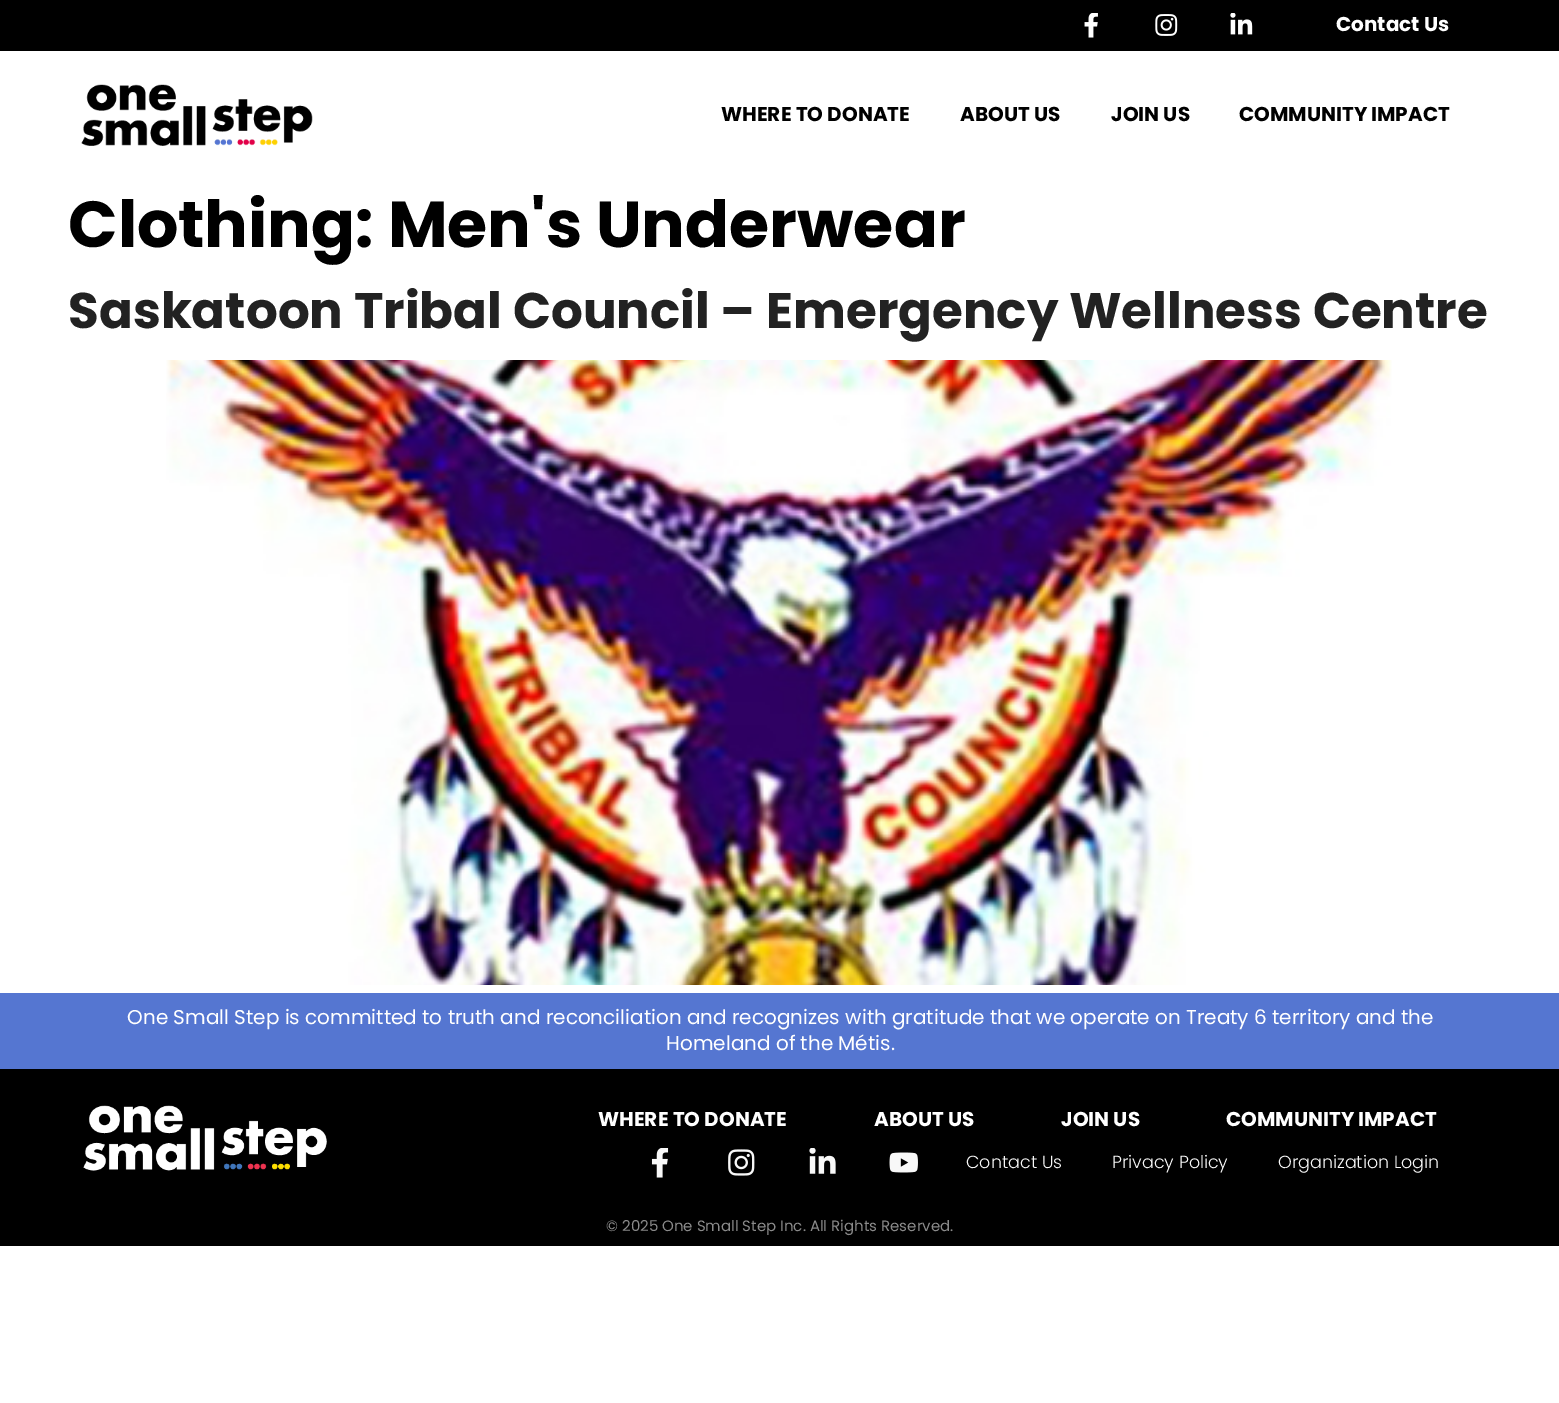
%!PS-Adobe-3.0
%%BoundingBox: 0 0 1559 1403
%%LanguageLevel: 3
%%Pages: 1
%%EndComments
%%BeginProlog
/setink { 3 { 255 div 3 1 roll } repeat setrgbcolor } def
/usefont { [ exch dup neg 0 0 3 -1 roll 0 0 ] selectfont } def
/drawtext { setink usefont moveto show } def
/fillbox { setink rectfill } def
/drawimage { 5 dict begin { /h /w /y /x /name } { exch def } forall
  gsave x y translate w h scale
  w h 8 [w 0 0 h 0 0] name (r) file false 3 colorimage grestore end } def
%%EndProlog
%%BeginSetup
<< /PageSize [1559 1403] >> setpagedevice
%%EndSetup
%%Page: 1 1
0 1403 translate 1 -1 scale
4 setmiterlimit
0 0 1559 1403 255 255 255 fillbox
0 0 1559 51 0 0 0 fillbox
(assets/img1.rgb) 1084 13 14 25 drawimage
(assets/img2.rgb) 1155 14 23 22 drawimage
(assets/img3.rgb) 1230 13 23 22 drawimage
(Contact Us) 1336 31 /Poppins-Bold 20 255 255 255 drawtext
(assets/img4.rgb) 81 84 232 62 drawimage
(WHERE TO DONATE) 721 121 /Poppins-Bold 20 0 0 0 drawtext
(ABOUT US) 960 121 /Poppins-Bold 20 0 0 0 drawtext
(JOIN US) 1111 121 /Poppins-Bold 20 0 0 0 drawtext
(COMMUNITY IMPACT) 1239 121 /Poppins-Bold 20 0 0 0 drawtext
(Clothing: Men's Underwear) 68 247 /Poppins-Bold 65 0 0 0 drawtext
(Saskatoon Tribal Council – Emergency Wellness Centre) 68 328 /Poppins-Bold 50 34 34 34 drawtext
(assets/img5.rgb) 166 360 1226 625 drawimage
0 993 1559 76 85 118 209 fillbox
(One Small Step is committed to truth and reconciliation and recognizes with gratitude that we operate on Treaty 6 territory and the) 127 1024 /Poppins-Regular 20 255 255 255 drawtext
(Homeland of the Métis.) 666 1050 /Poppins-Regular 20 255 255 255 drawtext
0 1069 1559 177 0 0 0 fillbox
(assets/img6.rgb) 83 1105 244 66 drawimage
(WHERE TO DONATE) 598 1126 /Poppins-Bold 20 255 255 255 drawtext
(ABOUT US) 874 1126 /Poppins-Bold 20 255 255 255 drawtext
(JOIN US) 1061 1126 /Poppins-Bold 20 255 255 255 drawtext
(COMMUNITY IMPACT) 1226 1126 /Poppins-Bold 20 255 255 255 drawtext
(assets/img7.rgb) 651 1148 18 30 drawimage
(assets/img8.rgb) 728 1149 27 27 drawimage
(assets/img9.rgb) 809 1148 27 26 drawimage
(assets/img10.rgb) 889 1152 29 21 drawimage
(Contact Us) 966 1168 /Poppins-Light 17.5 248 248 248 drawtext
(Privacy Policy) 1112 1168 /Poppins-Light 17.5 248 248 248 drawtext
(Organization Login) 1278 1168 /Poppins-Light 17.5 248 248 248 drawtext
(© 2025 One Small Step Inc. All Rights Reserved.) 606 1231 /Poppins-Regular 15 138 138 138 drawtext
showpage
%%EOF
